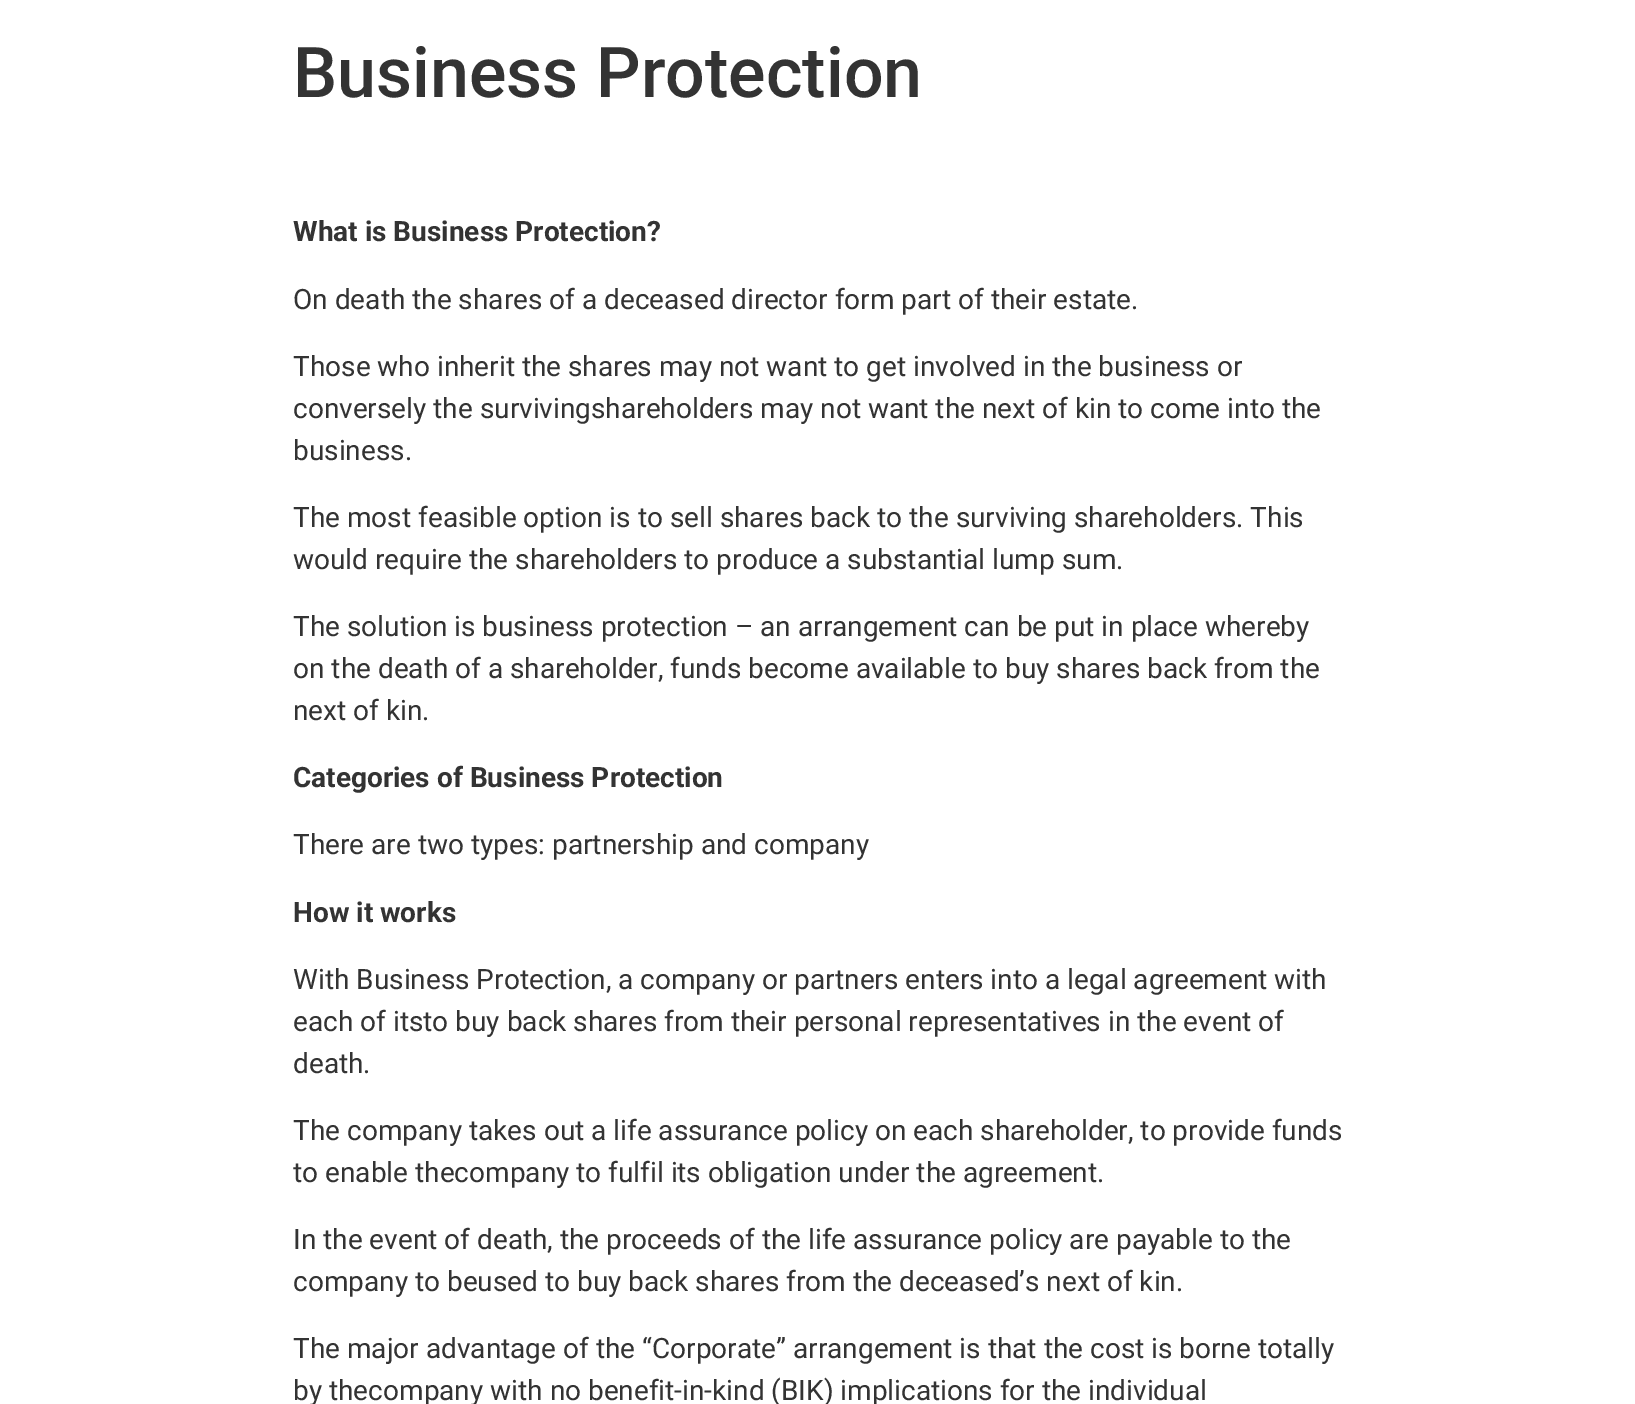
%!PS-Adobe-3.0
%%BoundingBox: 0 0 1635 1404
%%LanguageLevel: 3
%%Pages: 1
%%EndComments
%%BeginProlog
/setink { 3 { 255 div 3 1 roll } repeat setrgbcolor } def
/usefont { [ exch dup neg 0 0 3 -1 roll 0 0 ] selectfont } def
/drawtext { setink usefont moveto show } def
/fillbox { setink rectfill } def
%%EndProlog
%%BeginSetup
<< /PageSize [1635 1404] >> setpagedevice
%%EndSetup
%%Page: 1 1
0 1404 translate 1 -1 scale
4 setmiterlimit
0 0 1635 1404 255 255 255 fillbox
(Business Protection) 293 97 /Roboto-Medium 70 51 51 51 drawtext
(What is Business Protection?) 293 241 /Roboto-Bold 28 51 51 51 drawtext
(On death the shares of a deceased director form part of their estate.) 293 309 /Roboto-Regular 28 51 51 51 drawtext
(Those who inherit the shares may not want to get involved in the business or) 293 376 /Roboto-Regular 28 51 51 51 drawtext
(conversely the survivingshareholders may not want the next of kin to come into the) 293 418 /Roboto-Regular 28 51 51 51 drawtext
(business.) 293 460 /Roboto-Regular 28 51 51 51 drawtext
(The most feasible option is to sell shares back to the surviving shareholders. This) 293 527 /Roboto-Regular 28 51 51 51 drawtext
(would require the shareholders to produce a substantial lump sum.) 293 569 /Roboto-Regular 28 51 51 51 drawtext
(The solution is business protection – an arrangement can be put in place whereby) 293 636 /Roboto-Regular 28 51 51 51 drawtext
(on the death of a shareholder, funds become available to buy shares back from the) 293 678 /Roboto-Regular 28 51 51 51 drawtext
(next of kin.) 293 720 /Roboto-Regular 28 51 51 51 drawtext
(Categories of Business Protection) 293 787 /Roboto-Bold 28 51 51 51 drawtext
(There are two types: partnership and company) 293 854 /Roboto-Regular 28 51 51 51 drawtext
(How it works) 293 922 /Roboto-Bold 28 51 51 51 drawtext
(With Business Protection, a company or partners enters into a legal agreement with) 293 989 /Roboto-Regular 28 51 51 51 drawtext
(each of itsto buy back shares from their personal representatives in the event of) 293 1031 /Roboto-Regular 28 51 51 51 drawtext
(death.) 293 1073 /Roboto-Regular 28 51 51 51 drawtext
(The company takes out a life assurance policy on each shareholder, to provide funds) 293 1140 /Roboto-Regular 28 51 51 51 drawtext
(to enable thecompany to fulfil its obligation under the agreement.) 293 1182 /Roboto-Regular 28 51 51 51 drawtext
(In the event of death, the proceeds of the life assurance policy are payable to the) 293 1249 /Roboto-Regular 28 51 51 51 drawtext
(company to beused to buy back shares from the deceased’s next of kin.) 293 1291 /Roboto-Regular 28 51 51 51 drawtext
(The major advantage of the “Corporate” arrangement is that the cost is borne totally) 293 1358 /Roboto-Regular 28 51 51 51 drawtext
(by thecompany with no benefit-in-kind \(BIK\) implications for the individual) 293 1400 /Roboto-Regular 28 51 51 51 drawtext
showpage
%%EOF
